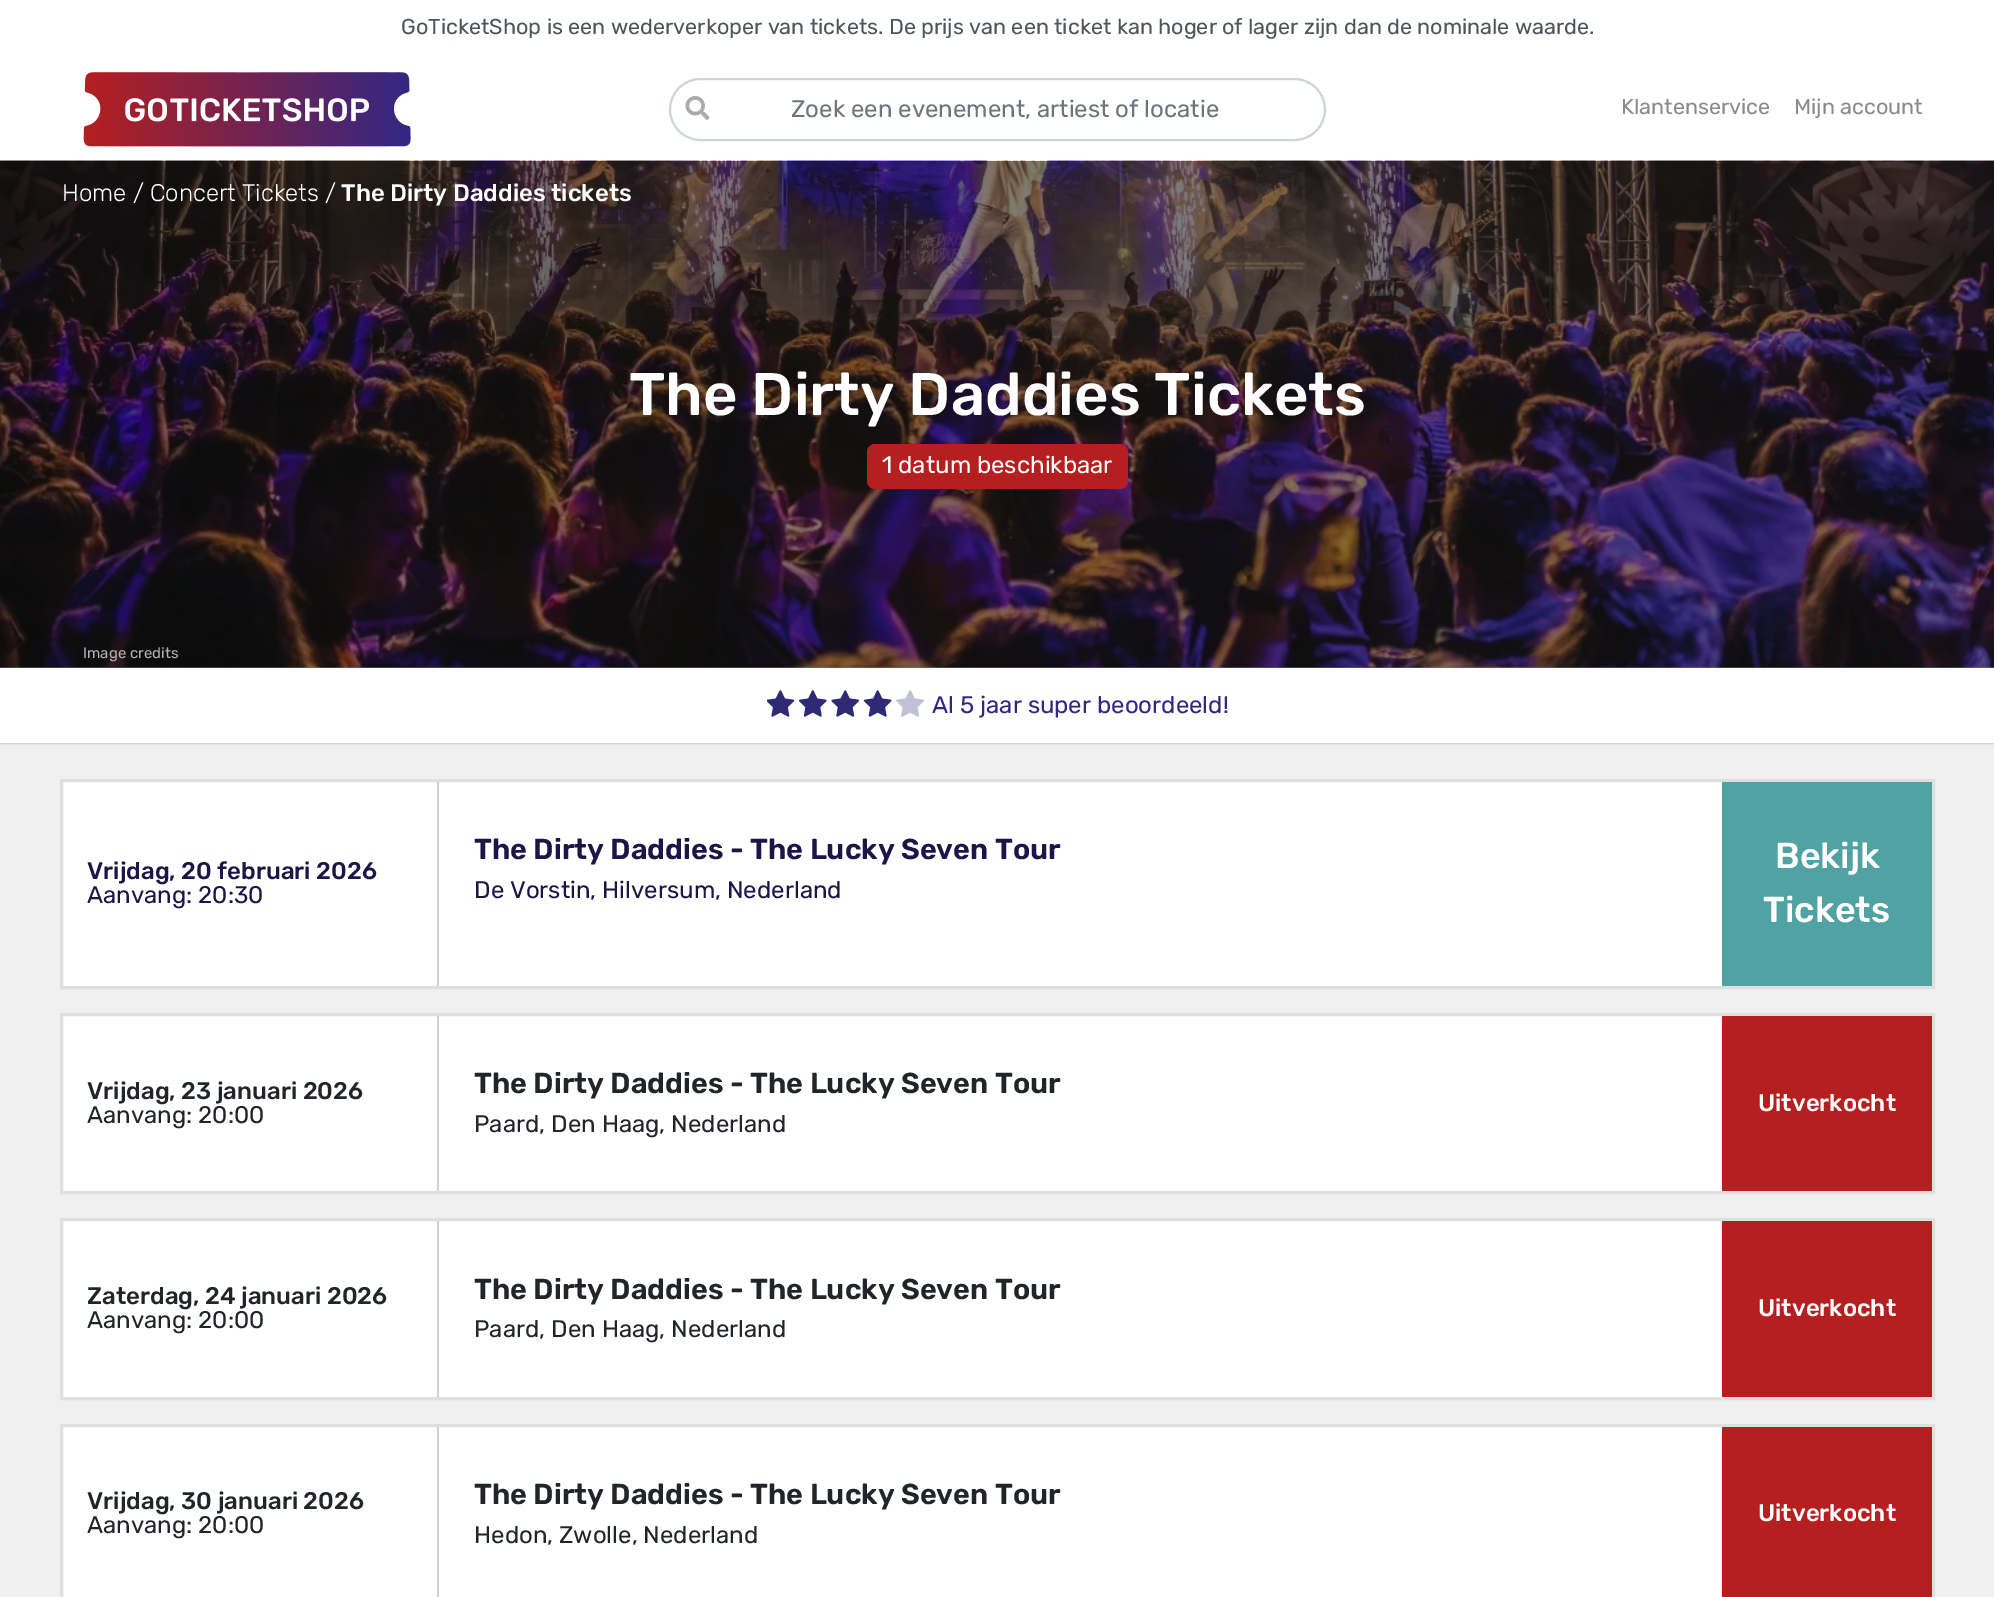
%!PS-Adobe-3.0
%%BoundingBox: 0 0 1994 1597
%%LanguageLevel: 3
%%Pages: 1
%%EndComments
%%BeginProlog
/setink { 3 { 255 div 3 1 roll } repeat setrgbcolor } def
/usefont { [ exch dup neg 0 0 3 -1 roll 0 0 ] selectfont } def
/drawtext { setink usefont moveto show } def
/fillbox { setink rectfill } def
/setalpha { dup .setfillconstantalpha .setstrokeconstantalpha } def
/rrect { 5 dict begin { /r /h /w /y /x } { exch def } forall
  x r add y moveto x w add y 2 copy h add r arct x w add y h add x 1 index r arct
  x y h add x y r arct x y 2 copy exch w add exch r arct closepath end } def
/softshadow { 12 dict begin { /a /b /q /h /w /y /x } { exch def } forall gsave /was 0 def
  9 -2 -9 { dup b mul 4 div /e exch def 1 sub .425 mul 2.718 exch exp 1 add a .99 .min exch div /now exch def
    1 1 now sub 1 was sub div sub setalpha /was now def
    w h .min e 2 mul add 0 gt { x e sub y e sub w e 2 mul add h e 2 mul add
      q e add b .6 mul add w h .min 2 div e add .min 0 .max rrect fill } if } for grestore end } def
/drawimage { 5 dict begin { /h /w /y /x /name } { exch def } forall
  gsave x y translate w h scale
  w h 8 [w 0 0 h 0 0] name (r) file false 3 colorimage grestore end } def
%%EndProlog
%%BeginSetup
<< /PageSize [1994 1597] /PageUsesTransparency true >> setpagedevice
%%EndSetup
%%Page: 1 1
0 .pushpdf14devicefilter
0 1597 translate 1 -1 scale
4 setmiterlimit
0 0 1994 1597 240 240 240 fillbox
0 0 1994 161 255 255 255 fillbox
(GoTicketShop is een wederverkoper van tickets. De prijs van een ticket kan hoger of lager zijn dan de nominale waarde.) 401 34 /Rubik-Regular 21.6 77 84 90 drawtext
(assets/img1.rgb) 83 72 328 75 drawimage
206 212 218 setink
2 setlinewidth
670 79 655 61 30.5 rrect stroke
(assets/img2.rgb) 685 96 25 24 drawimage
(Zoek een evenement, artiest of locatie) 791 117 /Rubik-Regular 24 108 117 125 drawtext
(Klantenservice) 1621 114 /Rubik-Regular 21.6 138 138 138 drawtext
(Mijn account) 1794 114 /Rubik-Regular 21.6 138 138 138 drawtext
204 204 204 setink
0 669 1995 75 0 1 1 softshadow
0 667 1994 1 233 236 239 fillbox
(assets/img3.rgb) 0 160 1994 508 drawimage
0.5 setalpha
0 161 1994 507 0 0 0 fillbox
1 setalpha
(Home / Concert Tickets /) 62 201 /Rubik-Light 24 255 255 255 drawtext
(The Dirty Daddies tickets) 341 201 /Rubik-Medium 24 255 255 255 drawtext
(The Dirty Daddies Tickets) 629 415 /Rubik-Medium 60 255 255 255 drawtext
181 31 31 setink
867 444 261 45 8 rrect fill
(1 datum beschikbaar) 882 473 /Rubik-Regular 24 255 255 255 drawtext
(Image credits) 83 658 /Rubik-Regular 15 179 178 178 drawtext
0 668 1994 75 255 255 255 fillbox
(assets/img4.rgb) 767 690 157 27 drawimage
(Al 5 jaar super beoordeeld!) 932 713 /Rubik-Regular 24 49 39 131 drawtext
63 782 1659 204 255 255 255 fillbox
223 223 223 setink
3 setlinewidth
61.5 780.5 1872 207 rectstroke
437 782 2 204 209 209 209 fillbox
(Vrijdag, 20 februari 2026) 87 879 /Rubik-Medium 24 27 21 72 drawtext
(Aanvang: 20:30) 87 903 /Rubik-Regular 24 27 21 72 drawtext
(The Dirty Daddies - The Lucky Seven Tour) 474 859 /Rubik-SemiBold 28.8 27 21 72 drawtext
(De Vorstin, Hilversum, Nederland) 474 898 /Rubik-Regular 24 27 21 72 drawtext
1722 782 210 204 81 163 163 fillbox
(Bekijk) 1775 868 /Rubik-Medium 36 255 255 255 drawtext
(Tickets) 1763 922 /Rubik-Medium 36 255 255 255 drawtext
63 1016 1659 175 255 255 255 fillbox
223 223 223 setink
61.5 1014.5 1872 178 rectstroke
437 1016 2 175 209 209 209 fillbox
(Vrijdag, 23 januari 2026) 87 1099 /Rubik-Medium 24 33 37 41 drawtext
(Aanvang: 20:00) 87 1123 /Rubik-Regular 24 33 37 41 drawtext
(The Dirty Daddies - The Lucky Seven Tour) 474 1093 /Rubik-SemiBold 28.8 33 37 41 drawtext
(Paard, Den Haag, Nederland) 474 1132 /Rubik-Regular 24 33 37 41 drawtext
1722 1016 210 175 181 31 31 fillbox
(Uitverkocht) 1758 1111 /Rubik-Medium 24 255 255 255 drawtext
63 1221 1659 176 255 255 255 fillbox
223 223 223 setink
61.5 1219.5 1872 179 rectstroke
437 1221 2 176 209 209 209 fillbox
(Zaterdag, 24 januari 2026) 87 1304 /Rubik-Medium 24 33 37 41 drawtext
(Aanvang: 20:00) 87 1328 /Rubik-Regular 24 33 37 41 drawtext
(The Dirty Daddies - The Lucky Seven Tour) 474 1299 /Rubik-SemiBold 28.8 33 37 41 drawtext
(Paard, Den Haag, Nederland) 474 1337 /Rubik-Regular 24 33 37 41 drawtext
1722 1221 210 176 181 31 31 fillbox
(Uitverkocht) 1758 1316 /Rubik-Medium 24 255 255 255 drawtext
63 1427 1659 170 255 255 255 fillbox
223 223 223 setink
61.5 1425.5 1872 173 rectstroke
437 1427 2 170 209 209 209 fillbox
(Vrijdag, 30 januari 2026) 87 1509 /Rubik-Medium 24 33 37 41 drawtext
(Aanvang: 20:00) 87 1533 /Rubik-Regular 24 33 37 41 drawtext
(The Dirty Daddies - The Lucky Seven Tour) 474 1504 /Rubik-SemiBold 28.8 33 37 41 drawtext
(Hedon, Zwolle, Nederland) 474 1543 /Rubik-Regular 24 33 37 41 drawtext
1722 1427 210 170 181 31 31 fillbox
(Uitverkocht) 1758 1521 /Rubik-Medium 24 255 255 255 drawtext
.poppdf14devicefilter showpage
%%EOF
